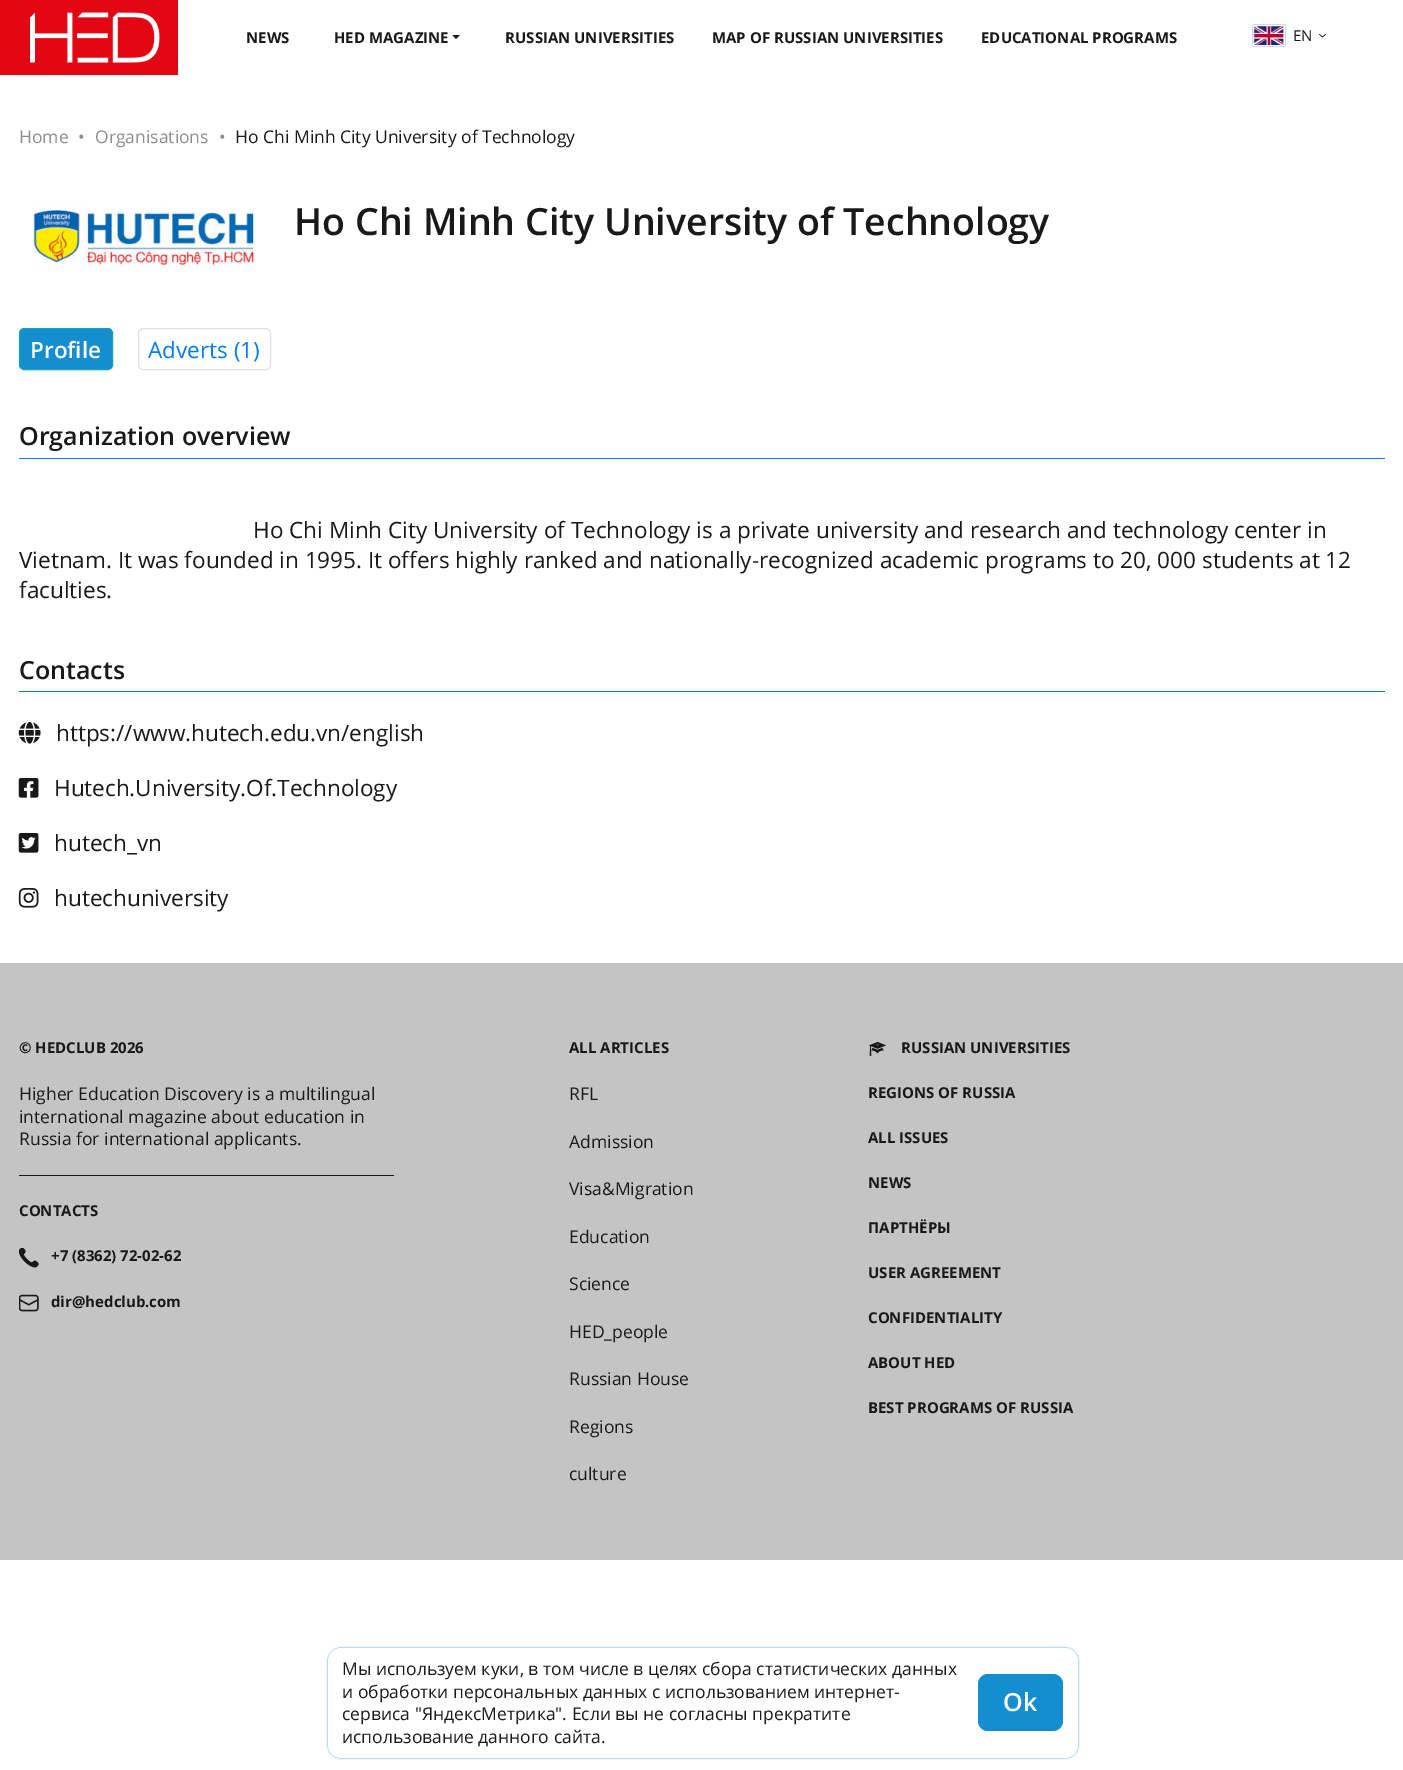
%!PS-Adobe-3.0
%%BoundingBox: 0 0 1403 1770
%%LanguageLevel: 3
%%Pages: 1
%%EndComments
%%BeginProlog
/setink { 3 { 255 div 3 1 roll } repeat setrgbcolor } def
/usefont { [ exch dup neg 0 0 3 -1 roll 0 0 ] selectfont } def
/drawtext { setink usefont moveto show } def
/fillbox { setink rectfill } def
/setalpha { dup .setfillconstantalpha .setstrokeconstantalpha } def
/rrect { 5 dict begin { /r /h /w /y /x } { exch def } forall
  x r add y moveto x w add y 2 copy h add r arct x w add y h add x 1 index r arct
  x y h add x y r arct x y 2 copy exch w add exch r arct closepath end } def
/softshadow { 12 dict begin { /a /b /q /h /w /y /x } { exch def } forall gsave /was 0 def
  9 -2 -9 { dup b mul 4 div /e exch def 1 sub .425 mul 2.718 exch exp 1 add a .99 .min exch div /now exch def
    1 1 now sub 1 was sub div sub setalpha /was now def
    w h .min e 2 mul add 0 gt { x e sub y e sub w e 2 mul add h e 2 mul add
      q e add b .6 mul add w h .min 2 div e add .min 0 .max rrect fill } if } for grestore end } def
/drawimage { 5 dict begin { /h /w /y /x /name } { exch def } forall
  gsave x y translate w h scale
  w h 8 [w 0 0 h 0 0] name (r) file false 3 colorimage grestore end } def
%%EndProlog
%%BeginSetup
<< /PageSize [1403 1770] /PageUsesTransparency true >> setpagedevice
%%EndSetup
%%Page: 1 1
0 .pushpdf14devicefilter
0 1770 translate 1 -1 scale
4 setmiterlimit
0 0 1403 1770 255 255 255 fillbox
(assets/img1.rgb) 0 0 178 75 drawimage
(NEWS) 246 43 /OpenSans-Bold 15 25 25 25 drawtext
(HED MAGAZINE) 334 43 /OpenSans-Bold 15 25 25 25 drawtext
452.5 35 moveto 460 35 lineto 456 39 lineto closepath fill
(RUSSIAN UNIVERSITIES) 505 43 /OpenSans-Bold 15 25 25 25 drawtext
(MAP OF RUSSIAN UNIVERSITIES) 712 43 /OpenSans-Bold 15 25 25 25 drawtext
(EDUCATIONAL PROGRAMS) 981 43 /OpenSans-Bold 15 25 25 25 drawtext
gsave
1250 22 moveto 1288 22 lineto 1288 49 lineto 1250 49 lineto closepath 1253 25 moveto 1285 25 lineto 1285 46 lineto 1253 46 lineto closepath eoclip newpath
20 142 206 setink
1253 25 32 21 0 0.5 1 softshadow
grestore
(assets/img2.rgb) 1253 26 31 19 drawimage
(EN) 1293 41 /OpenSans-Regular 15 25 25 25 drawtext
(assets/img3.rgb) 1319 34 7 4 drawimage
(Home) 19 143 /OpenSans-Regular 17.5 141 141 141 drawtext
(•) 78 143 /OpenSans-Regular 17.5 141 141 141 drawtext
(Organisations) 95 143 /OpenSans-Regular 17.5 141 141 141 drawtext
(•) 219 143 /OpenSans-Regular 17.5 141 141 141 drawtext
(Ho Chi Minh City University of Technology) 235 143 /OpenSans-Regular 17.5 25 25 25 drawtext
(assets/img4.rgb) 33 207 223 62 drawimage
(Ho Chi Minh City University of Technology) 294 235 /OpenSans-SemiBold 37.5 25 25 25 drawtext
20 142 206 setink
19.5 328.5 93 41 4.5 rrect gsave fill grestore
23 162 184 setink
stroke
(Profile) 30 358 /OpenSans-SemiBold 22.5 255 255 255 drawtext
222 226 230 setink
138.5 328.5 132 41 4.5 rrect stroke
(Adverts \(1\)) 148 358 /OpenSans-Regular 22.5 0 123 255 drawtext
19 458 1366 1 0 123 255 fillbox
(Organization overview) 19 445 /OpenSans-SemiBold 25 25 25 25 drawtext
(Ho Chi Minh City University of Technology is a private university and research and technology center in) 253 538 /OpenSans-Regular 22.5 25 25 25 drawtext
(Vietnam. It was founded in 1995. It offers highly ranked and nationally-recognized academic programs to 20, 000 students at 12) 19 568 /OpenSans-Regular 22.5 25 25 25 drawtext
(faculties.) 19 598 /OpenSans-Regular 22.5 25 25 25 drawtext
19 691 1366 1 0 123 255 fillbox
(Contacts) 19 679 /OpenSans-SemiBold 25 25 25 25 drawtext
(assets/img5.rgb) 18 721 23 23 drawimage
(https://www.hutech.edu.vn/english) 56 741 /OpenSans-Regular 22.5 25 25 25 drawtext
(assets/img6.rgb) 18 778 21 20 drawimage
(Hutech.University.Of.Technology) 54 796 /OpenSans-Regular 22.5 25 25 25 drawtext
(assets/img7.rgb) 18 833 21 20 drawimage
(hutech_vn) 54 851 /OpenSans-Regular 22.5 25 25 25 drawtext
(assets/img8.rgb) 18 888 21 20 drawimage
(hutechuniversity) 54 906 /OpenSans-Regular 22.5 25 25 25 drawtext
0 963 1403 597 196 196 196 fillbox
(© HEDCLUB 2026) 19 1053 /OpenSans-Bold 15 25 25 25 drawtext
(Higher Education Discovery is a multilingual) 19 1100 /OpenSans-Regular 17.5 25 25 25 drawtext
(international magazine about education in) 19 1123 /OpenSans-Regular 17.5 25 25 25 drawtext
(Russia for international applicants.) 19 1145 /OpenSans-Regular 17.5 25 25 25 drawtext
19 1175 375 1 25 25 25 fillbox
(CONTACTS) 19 1216 /OpenSans-Bold 15 25 25 25 drawtext
(assets/img9.rgb) 19 1248 20 20 drawimage
(+7 \(8362\) 72-02-62) 51 1261 /OpenSans-Bold 15 25 25 25 drawtext
(assets/img10.rgb) 19 1294 20 18 drawimage
(dir@hedclub.com) 51 1307 /OpenSans-Bold 15 25 25 25 drawtext
(ALL ARTICLES) 569 1053 /OpenSans-Bold 15 25 25 25 drawtext
(RFL) 569 1100 /OpenSans-Regular 17.5 25 25 25 drawtext
(Admission) 569 1148 /OpenSans-Regular 17.5 25 25 25 drawtext
(Visa&Migration) 569 1195 /OpenSans-Regular 17.5 25 25 25 drawtext
(Education) 569 1243 /OpenSans-Regular 17.5 25 25 25 drawtext
(Science) 569 1290 /OpenSans-Regular 17.5 25 25 25 drawtext
(HED_people) 569 1338 /OpenSans-Regular 17.5 25 25 25 drawtext
(Russian House) 569 1385 /OpenSans-Regular 17.5 25 25 25 drawtext
(Regions) 569 1433 /OpenSans-Regular 17.5 25 25 25 drawtext
(culture) 569 1480 /OpenSans-Regular 17.5 25 25 25 drawtext
(assets/img11.rgb) 868 1041 19 15 drawimage
(RUSSIAN UNIVERSITIES) 901 1053 /OpenSans-Bold 15 25 25 25 drawtext
(REGIONS OF RUSSIA) 868 1098 /OpenSans-Bold 15 25 25 25 drawtext
(ALL ISSUES) 868 1143 /OpenSans-Bold 15 25 25 25 drawtext
(NEWS) 868 1188 /OpenSans-Bold 15 25 25 25 drawtext
(ПАРТНЁРЫ) 868 1233 /OpenSans-Bold 15 25 25 25 drawtext
(USER AGREEMENT) 868 1278 /OpenSans-Bold 15 25 25 25 drawtext
(CONFIDENTIALITY) 868 1323 /OpenSans-Bold 15 25 25 25 drawtext
(ABOUT HED) 868 1368 /OpenSans-Bold 15 25 25 25 drawtext
(BEST PROGRAMS OF RUSSIA) 868 1413 /OpenSans-Bold 15 25 25 25 drawtext
20 142 206 setink
328 1648 750 110 13 1 1 softshadow
255 255 255 setink
328 1648 750 110 13 rrect fill
(Мы используем куки, в том числе в целях сбора статистических данных) 342 1675 /OpenSans-Regular 17.5 25 25 25 drawtext
(и обработки персональных данных с использованием интернет-) 342 1698 /OpenSans-Regular 17.5 25 25 25 drawtext
(сервиса "ЯндексМетрика". Если вы не согласны прекратите) 342 1720 /OpenSans-Regular 17.5 25 25 25 drawtext
(использование данного сайта.) 342 1743 /OpenSans-Regular 17.5 25 25 25 drawtext
20 142 206 setink
978 1674 85 57 10 rrect fill
(Ok) 1003 1711 /OpenSans-SemiBold 25 255 255 255 drawtext
.poppdf14devicefilter showpage
%%EOF
